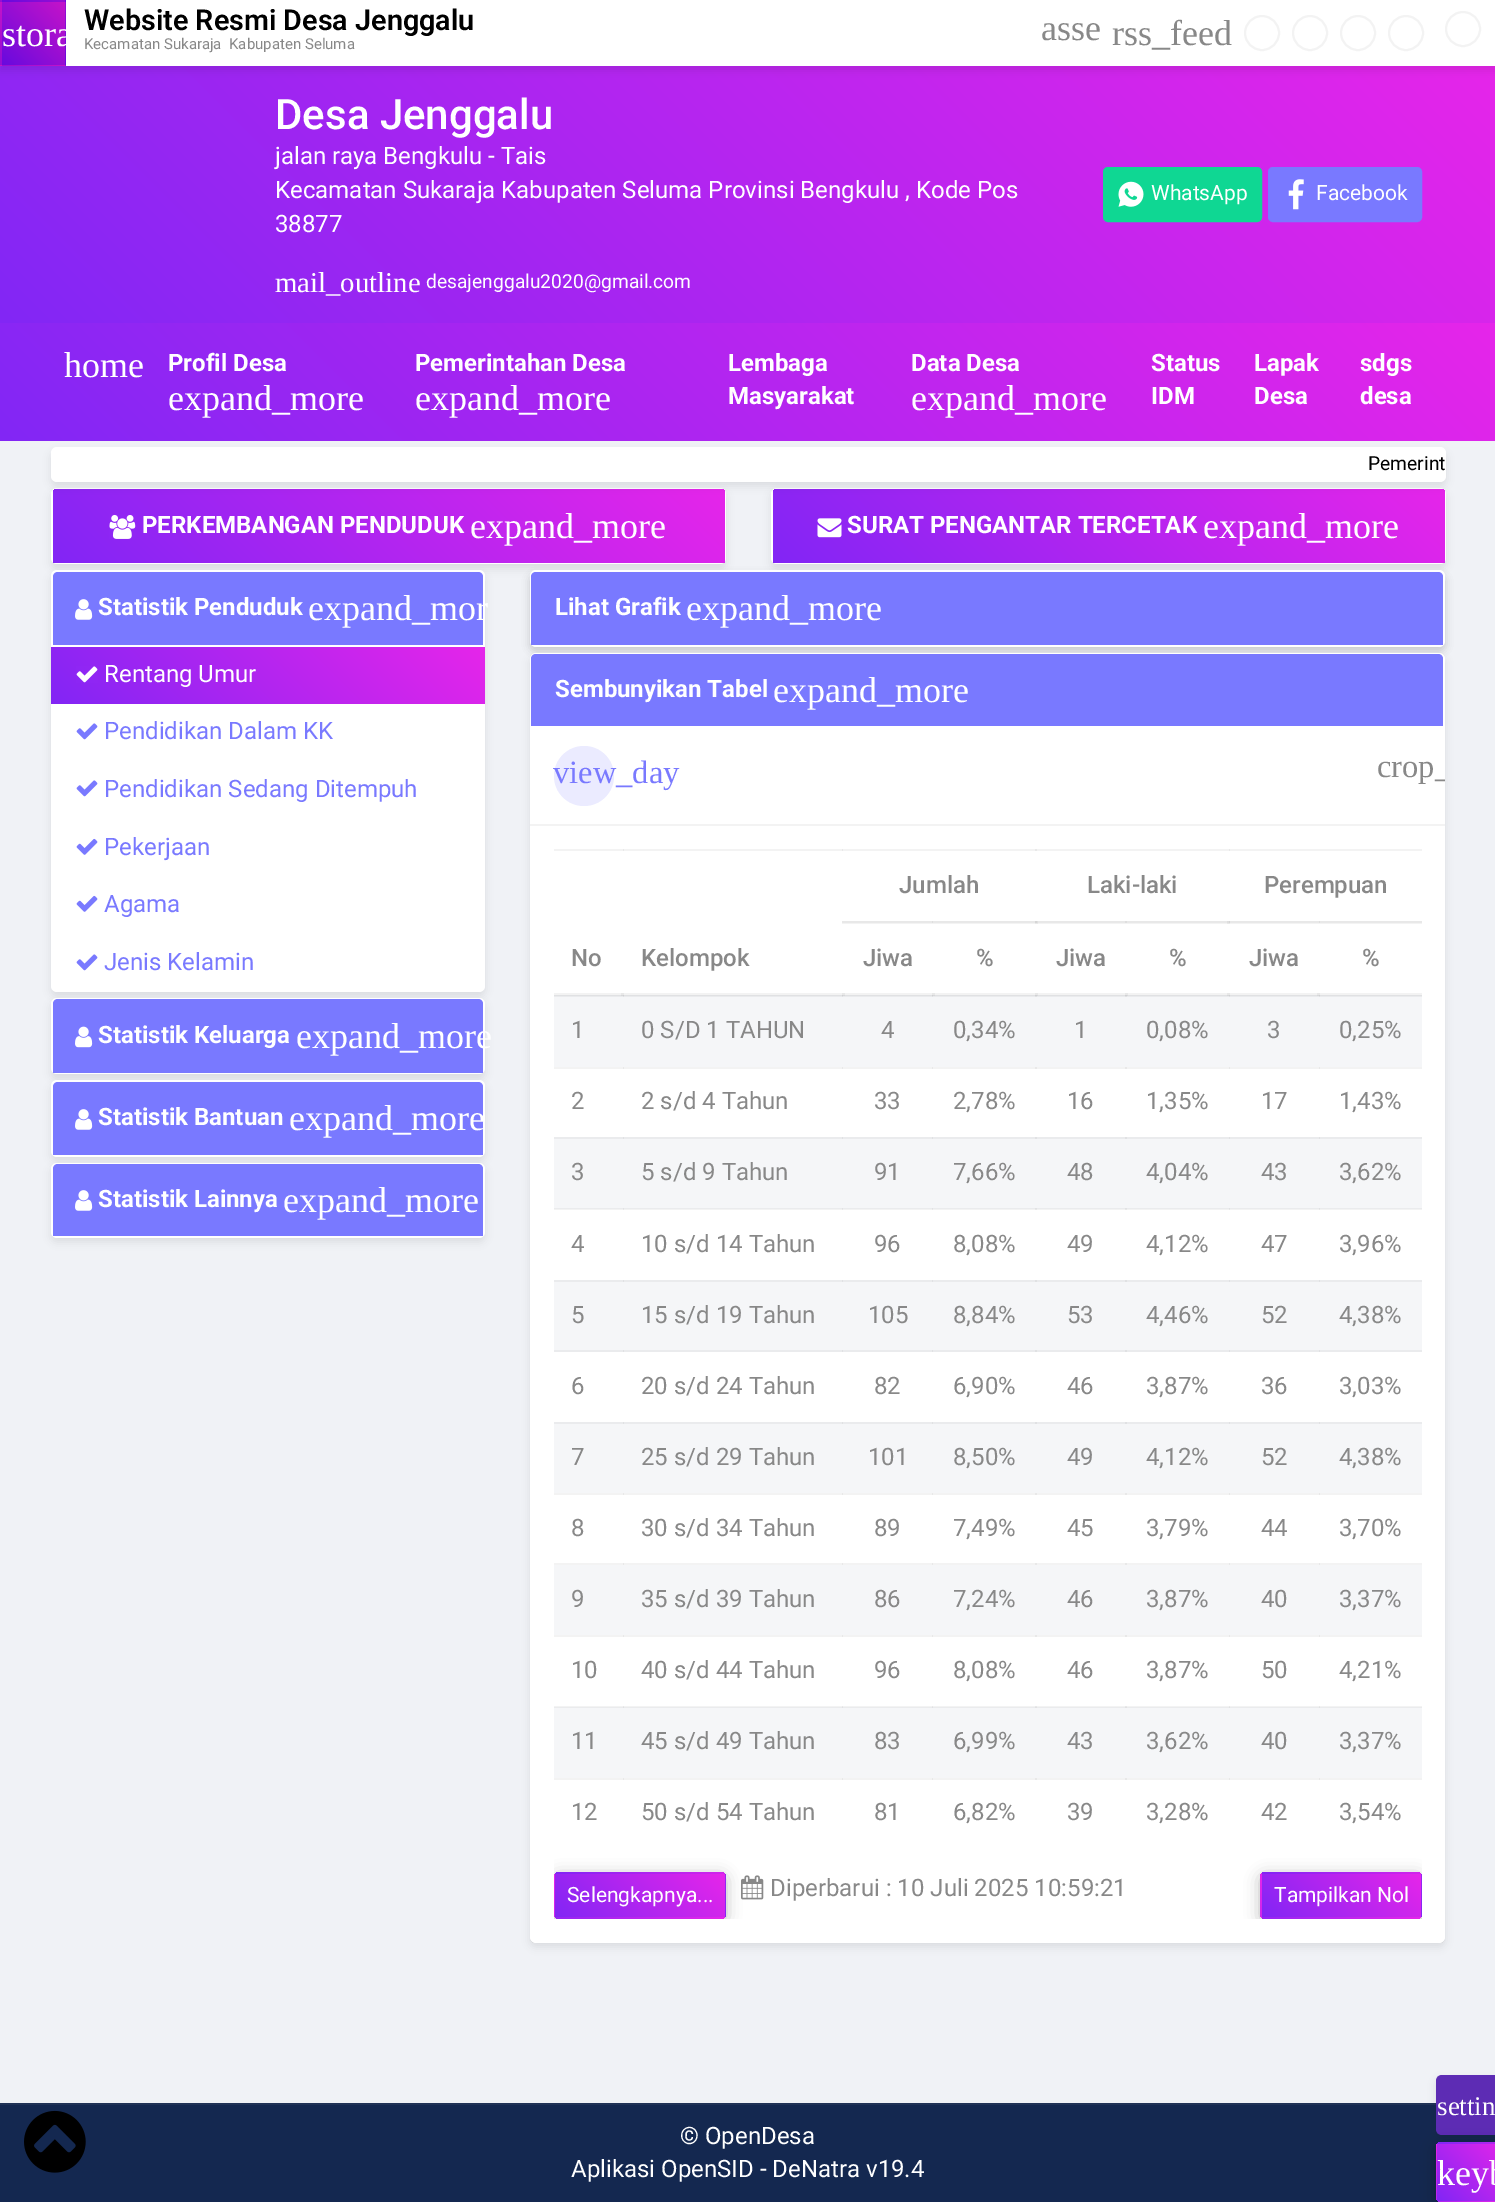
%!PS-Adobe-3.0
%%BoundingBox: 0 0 1495 2202
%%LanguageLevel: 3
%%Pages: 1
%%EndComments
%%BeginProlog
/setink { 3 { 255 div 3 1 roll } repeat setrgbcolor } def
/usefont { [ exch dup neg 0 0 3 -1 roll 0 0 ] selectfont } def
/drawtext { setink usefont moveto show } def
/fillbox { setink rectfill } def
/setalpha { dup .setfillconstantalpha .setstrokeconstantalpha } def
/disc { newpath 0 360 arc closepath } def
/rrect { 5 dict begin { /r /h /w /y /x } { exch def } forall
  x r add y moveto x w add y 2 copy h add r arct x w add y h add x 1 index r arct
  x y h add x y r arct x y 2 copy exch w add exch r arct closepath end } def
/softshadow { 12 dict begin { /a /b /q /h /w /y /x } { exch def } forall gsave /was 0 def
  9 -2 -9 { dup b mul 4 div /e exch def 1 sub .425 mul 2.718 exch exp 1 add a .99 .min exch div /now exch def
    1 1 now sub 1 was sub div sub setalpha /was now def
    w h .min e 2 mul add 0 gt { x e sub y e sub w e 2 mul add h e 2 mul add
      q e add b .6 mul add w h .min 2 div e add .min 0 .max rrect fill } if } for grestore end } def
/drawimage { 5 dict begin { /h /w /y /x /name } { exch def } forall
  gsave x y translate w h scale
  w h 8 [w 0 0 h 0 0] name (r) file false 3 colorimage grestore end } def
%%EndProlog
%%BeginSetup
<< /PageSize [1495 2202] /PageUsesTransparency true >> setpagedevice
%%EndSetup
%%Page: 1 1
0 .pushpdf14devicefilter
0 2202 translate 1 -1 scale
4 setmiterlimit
0 0 1495 2202 240 242 246 fillbox
gsave 0 66 moveto 1495 66 lineto 1495 323 lineto 0 323 lineto closepath clip newpath
<< /ShadingType 2 /ColorSpace /DeviceRGB /Coords [310 632 1186 -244] /Extend [true true] /Function << /FunctionType 2 /Domain [0 1] /C0 [0.51 0.149 0.961] /C1 [0.902 0.145 0.918] /N 1 >> >> shfill grestore
0 0 0 setink
0 5 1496 66 0 4 0.08 softshadow
66 0 1429 66 255 255 255 fillbox
gsave 0 0 moveto 2 0 lineto 2 2 lineto 0 2 lineto closepath clip newpath
<< /ShadingType 2 /ColorSpace /DeviceRGB /Coords [-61 1.5 1.5 -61] /Extend [true true] /Function << /FunctionType 2 /Domain [0 1] /C0 [0.408 0.039 0.871] /C1 [0.773 0.075 0.788] /N 1 >> >> shfill grestore
gsave 2 0 moveto 65 0 lineto 65 2 lineto 2 2 lineto closepath clip newpath
<< /ShadingType 2 /ColorSpace /DeviceRGB /Coords [1.5 1.5 65 -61] /Extend [true true] /Function << /FunctionType 2 /Domain [0 1] /C0 [0.408 0.039 0.871] /C1 [0.773 0.075 0.788] /N 1 >> >> shfill grestore
gsave 65 0 moveto 66 0 lineto 66 2 lineto 65 2 lineto closepath clip newpath
<< /ShadingType 2 /ColorSpace /DeviceRGB /Coords [65 1.5 128 -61] /Extend [true true] /Function << /FunctionType 2 /Domain [0 1] /C0 [0.408 0.039 0.871] /C1 [0.773 0.075 0.788] /N 1 >> >> shfill grestore
gsave 0 2 moveto 2 2 lineto 2 65 lineto 0 65 lineto closepath clip newpath
<< /ShadingType 2 /ColorSpace /DeviceRGB /Coords [-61 65 1.5 1.5] /Extend [true true] /Function << /FunctionType 2 /Domain [0 1] /C0 [0.408 0.039 0.871] /C1 [0.773 0.075 0.788] /N 1 >> >> shfill grestore
gsave 2 2 moveto 65 2 lineto 65 65 lineto 2 65 lineto closepath clip newpath
<< /ShadingType 2 /ColorSpace /DeviceRGB /Coords [1.5 65 65 1.5] /Extend [true true] /Function << /FunctionType 2 /Domain [0 1] /C0 [0.408 0.039 0.871] /C1 [0.773 0.075 0.788] /N 1 >> >> shfill grestore
gsave 65 2 moveto 66 2 lineto 66 65 lineto 65 65 lineto closepath clip newpath
<< /ShadingType 2 /ColorSpace /DeviceRGB /Coords [65 65 128 1.5] /Extend [true true] /Function << /FunctionType 2 /Domain [0 1] /C0 [0.408 0.039 0.871] /C1 [0.773 0.075 0.788] /N 1 >> >> shfill grestore
gsave 0 65 moveto 2 65 lineto 2 66 lineto 0 66 lineto closepath clip newpath
<< /ShadingType 2 /ColorSpace /DeviceRGB /Coords [-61 128 1.5 65] /Extend [true true] /Function << /FunctionType 2 /Domain [0 1] /C0 [0.408 0.039 0.871] /C1 [0.773 0.075 0.788] /N 1 >> >> shfill grestore
gsave 2 65 moveto 65 65 lineto 65 66 lineto 2 66 lineto closepath clip newpath
<< /ShadingType 2 /ColorSpace /DeviceRGB /Coords [1.5 128 65 65] /Extend [true true] /Function << /FunctionType 2 /Domain [0 1] /C0 [0.408 0.039 0.871] /C1 [0.773 0.075 0.788] /N 1 >> >> shfill grestore
gsave 65 65 moveto 66 65 lineto 66 66 lineto 65 66 lineto closepath clip newpath
<< /ShadingType 2 /ColorSpace /DeviceRGB /Coords [65 128 128 65] /Extend [true true] /Function << /FunctionType 2 /Domain [0 1] /C0 [0.408 0.039 0.871] /C1 [0.773 0.075 0.788] /N 1 >> >> shfill grestore
(stora) 2 46 /LiberationSerif-Regular 36 255 255 255 drawtext
(Website Resmi Desa Jenggalu) 84 30 /Roboto-SemiBold 28.75 0 0 0 drawtext
(Kecamatan Sukaraja) 84 49 /Roboto-Regular 15 136 136 136 drawtext
(Kabupaten Seluma) 229 49 /Roboto-Regular 15 136 136 136 drawtext
(asse) 1041 40 /LiberationSerif-Regular 36 136 136 136 drawtext
(rss_feed) 1112 45 /LiberationSerif-Regular 36 136 136 136 drawtext
243 243 243 setink
2 setlinewidth
1262 33 17 disc stroke
1310 33 17 disc stroke
1358 33 17 disc stroke
1406 33 17 disc stroke
1463 29 17 disc stroke
(Desa Jenggalu) 275 129 /Roboto-Medium 42 255 255 255 drawtext
(jalan raya Bengkulu - Tais) 275 164 /Roboto-Regular 24 255 255 255 drawtext
(Kecamatan Sukaraja Kabupaten Seluma Provinsi Bengkulu , Kode Pos) 275 198 /Roboto-Regular 24 255 255 255 drawtext
(38877) 275 232 /Roboto-Regular 24 255 255 255 drawtext
(mail_outline) 275 292 /LiberationSerif-Regular 28.75 255 255 255 drawtext
(desajenggalu2020@gmail.com) 426 288 /Roboto-Regular 19.25 255 255 255 drawtext
15 215 147 setink
1104 168 157 53 4 rrect gsave fill grestore
stroke
(assets/img1.rgb) 1118 181 26 26 drawimage
(WhatsApp) 1151 200 /Roboto-Regular 21 255 255 255 drawtext
121 121 255 setink
1269 168 152 53 4 rrect gsave fill grestore
stroke
(assets/img2.rgb) 1288 179 16 31 drawimage
(Facebook) 1316 200 /Roboto-Regular 21 255 255 255 drawtext
gsave 0 323 moveto 1495 323 lineto 1495 441 lineto 0 441 lineto closepath clip newpath
<< /ShadingType 2 /ColorSpace /DeviceRGB /Coords [344 785 1151 -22] /Extend [true true] /Function << /FunctionType 2 /Domain [0 1] /C0 [0.51 0.149 0.961] /C1 [0.902 0.145 0.918] /N 1 >> >> shfill grestore
(home) 64 377 /LiberationSerif-Regular 36 255 255 255 drawtext
(Profil Desa) 168 371 /Roboto-Bold 24 255 255 255 drawtext
(expand_more) 168 410 /LiberationSerif-Regular 36 255 255 255 drawtext
(Pemerintahan Desa) 415 371 /Roboto-Bold 24 255 255 255 drawtext
(expand_more) 415 410 /LiberationSerif-Regular 36 255 255 255 drawtext
(Lembaga) 728 371 /Roboto-Bold 24 255 255 255 drawtext
(Masyarakat) 728 404 /Roboto-Bold 24 255 255 255 drawtext
(Data Desa) 911 371 /Roboto-Bold 24 255 255 255 drawtext
(expand_more) 911 410 /LiberationSerif-Regular 36 255 255 255 drawtext
(Status) 1151 371 /Roboto-Bold 24 255 255 255 drawtext
(IDM) 1151 404 /Roboto-Bold 24 255 255 255 drawtext
(Lapak) 1254 371 /Roboto-Bold 24 255 255 255 drawtext
(Desa) 1254 404 /Roboto-Bold 24 255 255 255 drawtext
(sdgs) 1360 371 /Roboto-Bold 24 255 255 255 drawtext
(desa) 1360 404 /Roboto-Bold 24 255 255 255 drawtext
0 0 0 setink
51 492 675 77 6 4 0.08 softshadow
255 255 255 setink
51 488 675 76 6 rrect fill
gsave
51 488 675 76 6 rrect clip newpath
gsave 58 489 moveto 720 489 lineto 723 489 725 491 725 494 curveto 725 563 lineto 53 563 lineto 53 494 lineto 53 491 55 489 58 489 curveto closepath clip newpath
<< /ShadingType 2 /ColorSpace /DeviceRGB /Coords [202 712 575 339] /Extend [true true] /Function << /FunctionType 2 /Domain [0 1] /C0 [0.51 0.149 0.961] /C1 [0.902 0.145 0.918] /N 1 >> >> shfill grestore
grestore
0 0 0 setink
771 492 675 77 6 4 0.08 softshadow
255 255 255 setink
771 488 675 76 6 rrect fill
gsave
771 488 675 76 6 rrect clip newpath
gsave 778 489 moveto 1440 489 lineto 1443 489 1445 491 1445 494 curveto 1445 563 lineto 773 563 lineto 773 494 lineto 773 491 775 489 778 489 curveto closepath clip newpath
<< /ShadingType 2 /ColorSpace /DeviceRGB /Coords [922 712 1295 339] /Extend [true true] /Function << /FunctionType 2 /Domain [0 1] /C0 [0.51 0.149 0.961] /C1 [0.902 0.145 0.918] /N 1 >> >> shfill grestore
grestore
0 0 0 setink
51 452 1395 34 6 4 0.08 softshadow
255 255 255 setink
51 447 1395 35 6 rrect fill
(Pemerint) 1368 470 /Roboto-Regular 19.25 0 0 0 drawtext
(assets/img3.rgb) 109 514 27 25 drawimage
(PERKEMBANGAN PENDUDUK) 142 533 /Roboto-Bold 24 255 255 255 drawtext
(expand_more) 470 538 /LiberationSerif-Regular 36 255 255 255 drawtext
(assets/img4.rgb) 817 518 25 20 drawimage
(SURAT PENGANTAR TERCETAK) 847 533 /Roboto-Bold 24 255 255 255 drawtext
(expand_more) 1203 538 /LiberationSerif-Regular 36 255 255 255 drawtext
0 0 0 setink
51 575 434 421 6 4 0.08 softshadow
255 255 255 setink
51 570 434 422 6 rrect fill
121 121 255 setink
58 572 moveto 478 572 lineto 481 572 483 574 483 577 curveto 483 645 lineto 53 645 lineto 53 577 lineto 53 574 55 572 58 572 curveto closepath fill
(assets/img5.rgb) 75 599 18 21 drawimage
(Statistik Penduduk) 98 615 /Roboto-Bold 24 255 255 255 drawtext
(expand_mor) 308 620 /LiberationSerif-Regular 36 255 255 255 drawtext
gsave 51 647 moveto 485 647 lineto 485 704 lineto 51 704 lineto closepath clip newpath
<< /ShadingType 2 /ColorSpace /DeviceRGB /Coords [145 798 390 552] /Extend [true true] /Function << /FunctionType 2 /Domain [0 1] /C0 [0.51 0.149 0.961] /C1 [0.902 0.145 0.918] /N 1 >> >> shfill grestore
(assets/img6.rgb) 76 666 22 17 drawimage
(Rentang Umur) 104 682 /Roboto-Regular 24 255 255 255 drawtext
(assets/img7.rgb) 76 723 22 17 drawimage
(Pendidikan Dalam KK) 104 739 /Roboto-Regular 24 121 121 255 drawtext
(assets/img7.rgb) 76 780 22 17 drawimage
(Pendidikan Sedang Ditempuh) 104 797 /Roboto-Regular 24 121 121 255 drawtext
(assets/img8.rgb) 76 838 22 17 drawimage
(Pekerjaan) 104 855 /Roboto-Regular 24 121 121 255 drawtext
(assets/img8.rgb) 76 895 22 17 drawimage
(Agama) 104 912 /Roboto-Regular 24 121 121 255 drawtext
(assets/img7.rgb) 76 954 22 17 drawimage
(Jenis Kelamin) 104 970 /Roboto-Regular 24 121 121 255 drawtext
0 0 0 setink
51 1002 434 77 6 4 0.08 softshadow
255 255 255 setink
51 998 434 76 6 rrect fill
121 121 255 setink
58 999 moveto 478 999 lineto 481 999 483 1001 483 1004 curveto 483 1073 lineto 53 1073 lineto 53 1004 lineto 53 1001 55 999 58 999 curveto closepath fill
(assets/img9.rgb) 75 1026 18 22 drawimage
(Statistik Keluarga) 98 1043 /Roboto-Bold 24 255 255 255 drawtext
(expand_more) 296 1048 /LiberationSerif-Regular 36 255 255 255 drawtext
0 0 0 setink
51 1085 434 76 6 4 0.08 softshadow
255 255 255 setink
51 1080 434 77 6 rrect fill
121 121 255 setink
58 1082 moveto 478 1082 lineto 481 1082 483 1084 483 1087 curveto 483 1155 lineto 53 1155 lineto 53 1087 lineto 53 1084 55 1082 58 1082 curveto closepath fill
(assets/img5.rgb) 75 1109 18 21 drawimage
(Statistik Bantuan) 98 1125 /Roboto-Bold 24 255 255 255 drawtext
(expand_more) 289 1130 /LiberationSerif-Regular 36 255 255 255 drawtext
0 0 0 setink
51 1167 434 75 6 4 0.08 softshadow
255 255 255 setink
51 1163 434 75 6 rrect fill
121 121 255 setink
58 1164 moveto 478 1164 lineto 481 1164 483 1166 483 1169 curveto 483 1236 lineto 53 1236 lineto 53 1169 lineto 53 1166 55 1164 58 1164 curveto closepath fill
(assets/img5.rgb) 75 1190 18 21 drawimage
(Statistik Lainnya) 98 1207 /Roboto-Bold 24 255 255 255 drawtext
(expand_more) 283 1212 /LiberationSerif-Regular 36 255 255 255 drawtext
0 0 0 setink
530 575 915 76 6 4 0.08 softshadow
530 575 915 76 6 4 0.08 softshadow
255 255 255 setink
530 570 915 77 6 rrect fill
121 121 255 setink
536 572 moveto 1438 572 lineto 1441 572 1443 574 1443 577 curveto 1443 645 lineto 531 645 lineto 531 577 lineto 531 574 533 572 536 572 curveto closepath fill
(Lihat Grafik) 555 615 /Roboto-Bold 24 255 255 255 drawtext
(expand_more) 686 620 /LiberationSerif-Regular 36 255 255 255 drawtext
0 0 0 setink
530 657 915 1290 6 4 0.08 softshadow
gsave
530 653 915 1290 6 rrect clip newpath
530 657 915 1290 6 4 0.08 softshadow
grestore
255 255 255 setink
530 653 915 1290 6 rrect fill
554 993 868 2 243 243 243 fillbox
621 993 3 2 232 232 232 fillbox
842 923 580 1 243 243 243 fillbox
1035 923 3 1 232 232 232 fillbox
1227 923 3 1 232 232 232 fillbox
842 993 3 2 232 232 232 fillbox
932 993 3 2 232 232 232 fillbox
1035 993 3 2 232 232 232 fillbox
1125 993 3 2 232 232 232 fillbox
1227 993 3 2 232 232 232 fillbox
1317 993 3 2 232 232 232 fillbox
554 849 868 2 243 243 243 fillbox
623 849 1 2 232 232 232 fillbox
842 849 1 2 232 232 232 fillbox
1035 849 2 2 232 232 232 fillbox
842 921 388 2 232 232 232 fillbox
932 921 1 2 222 222 222 fillbox
1035 921 3 2 222 222 222 fillbox
1035 921 2 2 213 213 213 fillbox
1227 921 3 2 222 222 222 fillbox
1125 921 2 2 222 222 222 fillbox
1229 921 193 2 232 232 232 fillbox
1229 921 1 2 213 213 213 fillbox
554 1067 868 2 243 243 243 fillbox
623 1067 1 2 232 232 232 fillbox
842 1067 1 2 232 232 232 fillbox
932 1067 1 2 232 232 232 fillbox
1035 1067 2 2 232 232 232 fillbox
1125 1067 2 2 232 232 232 fillbox
1229 1067 1 2 232 232 232 fillbox
554 1209 868 1 243 243 243 fillbox
623 1208 1 2 232 232 232 fillbox
842 1208 1 2 232 232 232 fillbox
932 1208 1 2 232 232 232 fillbox
1035 1209 2 1 232 232 232 fillbox
1125 1209 2 1 232 232 232 fillbox
1229 1208 1 2 232 232 232 fillbox
1319 1208 1 2 232 232 232 fillbox
554 1493 868 2 243 243 243 fillbox
623 1493 1 2 232 232 232 fillbox
842 1493 1 2 232 232 232 fillbox
932 1493 1 2 232 232 232 fillbox
1035 1493 2 2 232 232 232 fillbox
1125 1493 2 2 232 232 232 fillbox
1229 1493 1 2 232 232 232 fillbox
554 1563 868 2 243 243 243 fillbox
623 1563 1 2 232 232 232 fillbox
842 1563 1 2 232 232 232 fillbox
932 1563 1 2 232 232 232 fillbox
1035 1563 2 2 232 232 232 fillbox
1125 1563 2 2 232 232 232 fillbox
1229 1563 1 2 232 232 232 fillbox
554 1635 868 2 243 243 243 fillbox
623 1635 1 2 232 232 232 fillbox
842 1635 1 2 232 232 232 fillbox
932 1635 1 2 232 232 232 fillbox
1035 1635 2 2 232 232 232 fillbox
1125 1635 2 2 232 232 232 fillbox
1229 1635 1 2 232 232 232 fillbox
554 1706 868 1 243 243 243 fillbox
623 1706 1 2 232 232 232 fillbox
842 1706 1 2 232 232 232 fillbox
932 1706 1 2 232 232 232 fillbox
1035 1706 2 1 232 232 232 fillbox
1125 1706 2 1 232 232 232 fillbox
1229 1706 1 2 232 232 232 fillbox
1319 1706 1 2 232 232 232 fillbox
554 1778 868 2 243 243 243 fillbox
623 1778 1 2 232 232 232 fillbox
842 1778 1 2 232 232 232 fillbox
932 1778 1 2 232 232 232 fillbox
1035 1778 2 2 232 232 232 fillbox
1125 1778 2 2 232 232 232 fillbox
1229 1778 1 2 232 232 232 fillbox
121 121 255 setink
536 654 moveto 1438 654 lineto 1441 654 1443 656 1443 659 curveto 1443 726 lineto 531 726 lineto 531 659 lineto 531 656 533 654 536 654 curveto closepath fill
(Sembunyikan Tabel) 555 697 /Roboto-Bold 24 255 255 255 drawtext
(expand_more) 773 702 /LiberationSerif-Regular 36 255 255 255 drawtext
530 824 915 2 243 243 243 fillbox
235 235 255 setink
584 776 30 disc fill
(view_day) 553 783 /LiberationSerif-Regular 32.5 121 121 255 drawtext
gsave
530 653 915 1290 6 rrect clip newpath
(crop_) 1377 777 /LiberationSerif-Regular 32.5 136 136 136 drawtext
grestore
(Jumlah) 899 893 /Roboto-Medium 24 136 136 136 drawtext
(Laki-laki) 1087 893 /Roboto-Medium 24 136 136 136 drawtext
1229 849 1 2 232 232 232 fillbox
(Perempuan) 1264 893 /Roboto-Medium 24 136 136 136 drawtext
(No) 571 966 /Roboto-Medium 24 136 136 136 drawtext
(Kelompok) 641 966 /Roboto-Medium 24 136 136 136 drawtext
(Jiwa) 863 966 /Roboto-Medium 24 136 136 136 drawtext
(%) 976 966 /Roboto-Medium 24 136 136 136 drawtext
(Jiwa) 1056 966 /Roboto-Medium 24 136 136 136 drawtext
(%) 1169 966 /Roboto-Medium 24 136 136 136 drawtext
(Jiwa) 1249 966 /Roboto-Medium 24 136 136 136 drawtext
1319 921 1 2 222 222 222 fillbox
(%) 1362 966 /Roboto-Medium 24 136 136 136 drawtext
554 997 868 70 245 246 248 fillbox
554 996 868 1 234 235 237 fillbox
554 995 70 1 224 225 227 fillbox
621 995 3 1 215 216 218 fillbox
623 995 607 1 224 225 227 fillbox
623 995 1 2 224 225 227 fillbox
623 995 1 1 207 208 210 fillbox
842 995 3 1 215 216 218 fillbox
842 995 1 2 224 225 227 fillbox
842 995 1 1 207 208 210 fillbox
932 995 3 1 215 216 218 fillbox
932 995 1 2 224 225 227 fillbox
932 995 1 1 207 208 210 fillbox
1035 995 3 1 215 216 218 fillbox
1035 996 2 1 224 225 227 fillbox
1035 995 2 1 207 208 210 fillbox
1125 995 3 1 215 216 218 fillbox
1227 995 3 1 215 216 218 fillbox
1125 996 2 1 224 225 227 fillbox
1125 995 2 1 207 208 210 fillbox
1229 995 91 1 224 225 227 fillbox
1317 995 3 1 215 216 218 fillbox
1229 995 1 2 224 225 227 fillbox
1229 995 1 1 207 208 210 fillbox
(1) 571 1038 /Roboto-Regular 24 136 136 136 drawtext
(0 S/D 1 TAHUN) 641 1038 /Roboto-Regular 24 136 136 136 drawtext
(4) 881 1038 /Roboto-Regular 24 136 136 136 drawtext
(0,34%) 953 1038 /Roboto-Regular 24 136 136 136 drawtext
(1) 1074 1038 /Roboto-Regular 24 136 136 136 drawtext
(0,08%) 1146 1038 /Roboto-Regular 24 136 136 136 drawtext
(3) 1267 1038 /Roboto-Regular 24 136 136 136 drawtext
1319 995 103 1 224 225 227 fillbox
1319 995 1 2 224 225 227 fillbox
1319 995 1 1 207 208 210 fillbox
(0,25%) 1339 1038 /Roboto-Regular 24 136 136 136 drawtext
(2) 571 1109 /Roboto-Regular 24 136 136 136 drawtext
(2 s/d 4 Tahun) 641 1109 /Roboto-Regular 24 136 136 136 drawtext
(33) 874 1109 /Roboto-Regular 24 136 136 136 drawtext
(2,78%) 953 1109 /Roboto-Regular 24 136 136 136 drawtext
(16) 1067 1109 /Roboto-Regular 24 136 136 136 drawtext
(1,35%) 1146 1109 /Roboto-Regular 24 136 136 136 drawtext
(17) 1261 1109 /Roboto-Regular 24 136 136 136 drawtext
1319 1067 1 2 232 232 232 fillbox
(1,43%) 1339 1109 /Roboto-Regular 24 136 136 136 drawtext
554 1139 868 69 245 246 248 fillbox
554 1137 868 2 234 235 237 fillbox
623 1137 1 2 224 225 227 fillbox
842 1137 1 2 224 225 227 fillbox
932 1137 1 2 224 225 227 fillbox
1035 1137 2 2 224 225 227 fillbox
1125 1137 2 2 224 225 227 fillbox
1229 1137 1 2 224 225 227 fillbox
554 1208 868 1 234 235 237 fillbox
623 1208 1 1 224 225 227 fillbox
842 1208 1 1 224 225 227 fillbox
932 1208 1 1 224 225 227 fillbox
1035 1208 2 1 224 225 227 fillbox
1125 1208 2 1 224 225 227 fillbox
1229 1208 1 1 224 225 227 fillbox
1319 1208 1 1 224 225 227 fillbox
(3) 571 1180 /Roboto-Regular 24 136 136 136 drawtext
(5 s/d 9 Tahun) 641 1180 /Roboto-Regular 24 136 136 136 drawtext
(91) 874 1180 /Roboto-Regular 24 136 136 136 drawtext
(7,66%) 953 1180 /Roboto-Regular 24 136 136 136 drawtext
(48) 1067 1180 /Roboto-Regular 24 136 136 136 drawtext
(4,04%) 1146 1180 /Roboto-Regular 24 136 136 136 drawtext
(43) 1261 1180 /Roboto-Regular 24 136 136 136 drawtext
1319 1137 1 2 224 225 227 fillbox
(3,62%) 1339 1180 /Roboto-Regular 24 136 136 136 drawtext
(4) 571 1252 /Roboto-Regular 24 136 136 136 drawtext
(10 s/d 14 Tahun) 641 1252 /Roboto-Regular 24 136 136 136 drawtext
(96) 874 1252 /Roboto-Regular 24 136 136 136 drawtext
(8,08%) 953 1252 /Roboto-Regular 24 136 136 136 drawtext
(49) 1067 1252 /Roboto-Regular 24 136 136 136 drawtext
(4,12%) 1146 1252 /Roboto-Regular 24 136 136 136 drawtext
(47) 1261 1252 /Roboto-Regular 24 136 136 136 drawtext
(3,96%) 1339 1252 /Roboto-Regular 24 136 136 136 drawtext
554 1282 868 68 245 246 248 fillbox
554 1280 868 2 234 235 237 fillbox
623 1280 1 2 224 225 227 fillbox
842 1280 1 2 224 225 227 fillbox
932 1280 1 2 224 225 227 fillbox
1035 1280 2 2 224 225 227 fillbox
1125 1280 2 2 224 225 227 fillbox
1229 1280 1 2 224 225 227 fillbox
554 1350 868 2 234 235 237 fillbox
623 1350 1 2 224 225 227 fillbox
842 1350 1 2 224 225 227 fillbox
932 1350 1 2 224 225 227 fillbox
1035 1350 2 2 224 225 227 fillbox
1125 1350 2 2 224 225 227 fillbox
1229 1350 1 2 224 225 227 fillbox
(5) 571 1323 /Roboto-Regular 24 136 136 136 drawtext
(15 s/d 19 Tahun) 641 1323 /Roboto-Regular 24 136 136 136 drawtext
(105) 868 1323 /Roboto-Regular 24 136 136 136 drawtext
(8,84%) 953 1323 /Roboto-Regular 24 136 136 136 drawtext
(53) 1067 1323 /Roboto-Regular 24 136 136 136 drawtext
(4,46%) 1146 1323 /Roboto-Regular 24 136 136 136 drawtext
(52) 1261 1323 /Roboto-Regular 24 136 136 136 drawtext
1319 1280 1 2 224 225 227 fillbox
(4,38%) 1339 1323 /Roboto-Regular 24 136 136 136 drawtext
(6) 571 1394 /Roboto-Regular 24 136 136 136 drawtext
(20 s/d 24 Tahun) 641 1394 /Roboto-Regular 24 136 136 136 drawtext
(82) 874 1394 /Roboto-Regular 24 136 136 136 drawtext
(6,90%) 953 1394 /Roboto-Regular 24 136 136 136 drawtext
(46) 1067 1394 /Roboto-Regular 24 136 136 136 drawtext
(3,87%) 1146 1394 /Roboto-Regular 24 136 136 136 drawtext
(36) 1261 1394 /Roboto-Regular 24 136 136 136 drawtext
1319 1350 1 2 224 225 227 fillbox
(3,03%) 1339 1394 /Roboto-Regular 24 136 136 136 drawtext
554 1424 868 69 245 246 248 fillbox
554 1422 868 2 234 235 237 fillbox
623 1422 1 2 224 225 227 fillbox
842 1422 1 2 224 225 227 fillbox
932 1422 1 2 224 225 227 fillbox
1035 1422 2 2 224 225 227 fillbox
1125 1422 2 2 224 225 227 fillbox
1229 1422 1 2 224 225 227 fillbox
(7) 571 1465 /Roboto-Regular 24 136 136 136 drawtext
(25 s/d 29 Tahun) 641 1465 /Roboto-Regular 24 136 136 136 drawtext
(101) 868 1465 /Roboto-Regular 24 136 136 136 drawtext
(8,50%) 953 1465 /Roboto-Regular 24 136 136 136 drawtext
(49) 1067 1465 /Roboto-Regular 24 136 136 136 drawtext
(4,12%) 1146 1465 /Roboto-Regular 24 136 136 136 drawtext
(52) 1261 1465 /Roboto-Regular 24 136 136 136 drawtext
1319 1422 1 2 224 225 227 fillbox
(4,38%) 1339 1465 /Roboto-Regular 24 136 136 136 drawtext
(8) 571 1536 /Roboto-Regular 24 136 136 136 drawtext
(30 s/d 34 Tahun) 641 1536 /Roboto-Regular 24 136 136 136 drawtext
(89) 874 1536 /Roboto-Regular 24 136 136 136 drawtext
(7,49%) 953 1536 /Roboto-Regular 24 136 136 136 drawtext
(45) 1067 1536 /Roboto-Regular 24 136 136 136 drawtext
(3,79%) 1146 1536 /Roboto-Regular 24 136 136 136 drawtext
(44) 1261 1536 /Roboto-Regular 24 136 136 136 drawtext
1319 1493 1 2 232 232 232 fillbox
(3,70%) 1339 1536 /Roboto-Regular 24 136 136 136 drawtext
554 1565 868 70 245 246 248 fillbox
(9) 571 1607 /Roboto-Regular 24 136 136 136 drawtext
(35 s/d 39 Tahun) 641 1607 /Roboto-Regular 24 136 136 136 drawtext
(86) 874 1607 /Roboto-Regular 24 136 136 136 drawtext
(7,24%) 953 1607 /Roboto-Regular 24 136 136 136 drawtext
(46) 1067 1607 /Roboto-Regular 24 136 136 136 drawtext
(3,87%) 1146 1607 /Roboto-Regular 24 136 136 136 drawtext
(40) 1261 1607 /Roboto-Regular 24 136 136 136 drawtext
1319 1563 1 2 232 232 232 fillbox
(3,37%) 1339 1607 /Roboto-Regular 24 136 136 136 drawtext
(10) 571 1678 /Roboto-Regular 24 136 136 136 drawtext
(40 s/d 44 Tahun) 641 1678 /Roboto-Regular 24 136 136 136 drawtext
(96) 874 1678 /Roboto-Regular 24 136 136 136 drawtext
(8,08%) 953 1678 /Roboto-Regular 24 136 136 136 drawtext
(46) 1067 1678 /Roboto-Regular 24 136 136 136 drawtext
(3,87%) 1146 1678 /Roboto-Regular 24 136 136 136 drawtext
(50) 1261 1678 /Roboto-Regular 24 136 136 136 drawtext
1319 1635 1 2 232 232 232 fillbox
(4,21%) 1339 1678 /Roboto-Regular 24 136 136 136 drawtext
554 1708 868 70 245 246 248 fillbox
554 1707 868 1 234 235 237 fillbox
623 1707 1 1 224 225 227 fillbox
842 1707 1 1 224 225 227 fillbox
932 1707 1 1 224 225 227 fillbox
1035 1707 2 1 224 225 227 fillbox
1125 1707 2 1 224 225 227 fillbox
1229 1707 1 1 224 225 227 fillbox
1319 1707 1 1 224 225 227 fillbox
(11) 571 1749 /Roboto-Regular 24 136 136 136 drawtext
(45 s/d 49 Tahun) 641 1749 /Roboto-Regular 24 136 136 136 drawtext
(83) 874 1749 /Roboto-Regular 24 136 136 136 drawtext
(6,99%) 953 1749 /Roboto-Regular 24 136 136 136 drawtext
(43) 1067 1749 /Roboto-Regular 24 136 136 136 drawtext
(3,62%) 1146 1749 /Roboto-Regular 24 136 136 136 drawtext
(40) 1261 1749 /Roboto-Regular 24 136 136 136 drawtext
(3,37%) 1339 1749 /Roboto-Regular 24 136 136 136 drawtext
(12) 571 1820 /Roboto-Regular 24 136 136 136 drawtext
(50 s/d 54 Tahun) 641 1820 /Roboto-Regular 24 136 136 136 drawtext
(81) 874 1820 /Roboto-Regular 24 136 136 136 drawtext
(6,82%) 953 1820 /Roboto-Regular 24 136 136 136 drawtext
(39) 1067 1820 /Roboto-Regular 24 136 136 136 drawtext
(3,28%) 1146 1820 /Roboto-Regular 24 136 136 136 drawtext
(42) 1261 1820 /Roboto-Regular 24 136 136 136 drawtext
1319 1778 1 2 232 232 232 fillbox
(3,54%) 1339 1820 /Roboto-Regular 24 136 136 136 drawtext
gsave
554 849 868 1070 rectclip
0 0 0 setink
554 1875 172 47 5 7.5 0.25 softshadow
grestore
gsave
554 1872 172 47 5 rrect clip newpath
gsave 555 1872 moveto 725 1872 lineto 725 1874 lineto 555 1874 lineto closepath clip newpath
<< /ShadingType 2 /ColorSpace /DeviceRGB /Coords [587 1905 693 1799] /Extend [true true] /Function << /FunctionType 2 /Domain [0 1] /C0 [0.51 0.149 0.961] /C1 [0.902 0.145 0.918] /N 1 >> >> shfill grestore
gsave 554 1874 moveto 555 1874 lineto 555 1917 lineto 554 1917 lineto closepath clip newpath
<< /ShadingType 2 /ColorSpace /DeviceRGB /Coords [417 1949 524 1842] /Extend [true true] /Function << /FunctionType 2 /Domain [0 1] /C0 [0.51 0.149 0.961] /C1 [0.902 0.145 0.918] /N 1 >> >> shfill grestore
grestore
gsave 555 1874 moveto 725 1874 lineto 725 1917 lineto 555 1917 lineto closepath clip newpath
<< /ShadingType 2 /ColorSpace /DeviceRGB /Coords [587 1949 693 1842] /Extend [true true] /Function << /FunctionType 2 /Domain [0 1] /C0 [0.51 0.149 0.961] /C1 [0.902 0.145 0.918] /N 1 >> >> shfill grestore
gsave
554 1872 172 47 5 rrect clip newpath
gsave 725 1874 moveto 726 1874 lineto 726 1917 lineto 725 1917 lineto closepath clip newpath
<< /ShadingType 2 /ColorSpace /DeviceRGB /Coords [756 1949 863 1842] /Extend [true true] /Function << /FunctionType 2 /Domain [0 1] /C0 [0.51 0.149 0.961] /C1 [0.902 0.145 0.918] /N 1 >> >> shfill grestore
gsave 555 1917 moveto 725 1917 lineto 725 1919 lineto 555 1919 lineto closepath clip newpath
<< /ShadingType 2 /ColorSpace /DeviceRGB /Coords [587 1992 693 1886] /Extend [true true] /Function << /FunctionType 2 /Domain [0 1] /C0 [0.51 0.149 0.961] /C1 [0.902 0.145 0.918] /N 1 >> >> shfill grestore
grestore
(Selengkapnya...) 567 1902 /Roboto-Regular 21 255 255 255 drawtext
(assets/img10.rgb) 741 1875 23 25 drawimage
(Diperbarui : 10 Juli 2025 10:59:21) 770 1896 /Roboto-Regular 24 136 136 136 drawtext
gsave
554 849 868 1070 rectclip
0 0 0 setink
1260 1875 162 47 5 7.5 0.25 softshadow
grestore
gsave
1260 1872 162 47 5 rrect clip newpath
gsave 1260 1873 moveto 1262 1873 lineto 1262 1874 lineto 1260 1874 lineto closepath clip newpath
<< /ShadingType 2 /ColorSpace /DeviceRGB /Coords [1131 1902 1233 1801] /Extend [true true] /Function << /FunctionType 2 /Domain [0 1] /C0 [0.51 0.149 0.961] /C1 [0.902 0.145 0.918] /N 1 >> >> shfill grestore
gsave 1262 1872 moveto 1421 1872 lineto 1421 1874 lineto 1262 1874 lineto closepath clip newpath
<< /ShadingType 2 /ColorSpace /DeviceRGB /Coords [1290 1902 1392 1801] /Extend [true true] /Function << /FunctionType 2 /Domain [0 1] /C0 [0.51 0.149 0.961] /C1 [0.902 0.145 0.918] /N 1 >> >> shfill grestore
gsave 1260 1874 moveto 1262 1874 lineto 1262 1917 lineto 1260 1917 lineto closepath clip newpath
<< /ShadingType 2 /ColorSpace /DeviceRGB /Coords [1131 1946 1233 1845] /Extend [true true] /Function << /FunctionType 2 /Domain [0 1] /C0 [0.51 0.149 0.961] /C1 [0.902 0.145 0.918] /N 1 >> >> shfill grestore
grestore
gsave 1262 1874 moveto 1421 1874 lineto 1421 1917 lineto 1262 1917 lineto closepath clip newpath
<< /ShadingType 2 /ColorSpace /DeviceRGB /Coords [1290 1946 1392 1845] /Extend [true true] /Function << /FunctionType 2 /Domain [0 1] /C0 [0.51 0.149 0.961] /C1 [0.902 0.145 0.918] /N 1 >> >> shfill grestore
gsave
1260 1872 162 47 5 rrect clip newpath
gsave 1421 1874 moveto 1422 1874 lineto 1422 1917 lineto 1421 1917 lineto closepath clip newpath
<< /ShadingType 2 /ColorSpace /DeviceRGB /Coords [1449 1946 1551 1845] /Extend [true true] /Function << /FunctionType 2 /Domain [0 1] /C0 [0.51 0.149 0.961] /C1 [0.902 0.145 0.918] /N 1 >> >> shfill grestore
gsave 1260 1917 moveto 1262 1917 lineto 1262 1918 lineto 1260 1918 lineto closepath clip newpath
<< /ShadingType 2 /ColorSpace /DeviceRGB /Coords [1131 1989 1233 1888] /Extend [true true] /Function << /FunctionType 2 /Domain [0 1] /C0 [0.51 0.149 0.961] /C1 [0.902 0.145 0.918] /N 1 >> >> shfill grestore
gsave 1262 1917 moveto 1421 1917 lineto 1421 1919 lineto 1262 1919 lineto closepath clip newpath
<< /ShadingType 2 /ColorSpace /DeviceRGB /Coords [1290 1989 1392 1888] /Extend [true true] /Function << /FunctionType 2 /Domain [0 1] /C0 [0.51 0.149 0.961] /C1 [0.902 0.145 0.918] /N 1 >> >> shfill grestore
grestore
(Tampilkan Nol) 1274 1902 /Roboto-Regular 21 255 255 255 drawtext
0 2105 1495 97 20 40 80 fillbox
0 2103 1436 2 32 50 86 fillbox
0 0 0 setink
1436 2079 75 60 6 4 0.08 softshadow
93 44 180 setink
1442 2075 moveto 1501 2075 lineto 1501 2135 lineto 1442 2135 lineto 1438.5 2135 1436 2132.5 1436 2129 curveto 1436 2081 lineto 1436 2077.5 1438.5 2075 1442 2075 curveto closepath fill
(settin) 1437 2115 /LiberationSerif-Regular 27 255 255 255 drawtext
0 0 0 setink
1436 2145 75 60 6 7.5 0.25 softshadow
gsave
1442 2142 moveto 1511 2142 lineto 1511 2202 lineto 1442 2202 lineto 1438.5 2202 1436 2199.5 1436 2196 curveto 1436 2148 lineto 1436 2144.5 1438.5 2142 1442 2142 curveto closepath clip newpath
gsave 1437 2142 moveto 1495 2142 lineto 1495 2144 lineto 1437 2144 lineto closepath clip newpath
<< /ShadingType 2 /ColorSpace /DeviceRGB /Coords [1441 2147 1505 2083] /Extend [true true] /Function << /FunctionType 2 /Domain [0 1] /C0 [0.51 0.149 0.961] /C1 [0.902 0.145 0.918] /N 1 >> >> shfill grestore
gsave 1436 2144 moveto 1437 2144 lineto 1437 2201 lineto 1436 2201 lineto closepath clip newpath
<< /ShadingType 2 /ColorSpace /DeviceRGB /Coords [1369 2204 1433 2140] /Extend [true true] /Function << /FunctionType 2 /Domain [0 1] /C0 [0.51 0.149 0.961] /C1 [0.902 0.145 0.918] /N 1 >> >> shfill grestore
gsave 1437 2144 moveto 1495 2144 lineto 1495 2201 lineto 1437 2201 lineto closepath clip newpath
<< /ShadingType 2 /ColorSpace /DeviceRGB /Coords [1441 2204 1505 2140] /Extend [true true] /Function << /FunctionType 2 /Domain [0 1] /C0 [0.51 0.149 0.961] /C1 [0.902 0.145 0.918] /N 1 >> >> shfill grestore
gsave 1437 2201 moveto 1495 2201 lineto 1495 2202 lineto 1437 2202 lineto closepath clip newpath
<< /ShadingType 2 /ColorSpace /DeviceRGB /Coords [1441 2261 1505 2197] /Extend [true true] /Function << /FunctionType 2 /Domain [0 1] /C0 [0.51 0.149 0.961] /C1 [0.902 0.145 0.918] /N 1 >> >> shfill grestore
grestore
(keyb) 1437 2185 /LiberationSerif-Regular 36 255 255 255 drawtext
(assets/img11.rgb) 24 2110 62 63 drawimage
(© OpenDesa) 680 2144 /Roboto-Regular 24 255 255 255 drawtext
(Aplikasi OpenSID - DeNatra v19.4) 571 2177 /Roboto-Regular 24 255 255 255 drawtext
.poppdf14devicefilter showpage
%%EOF
